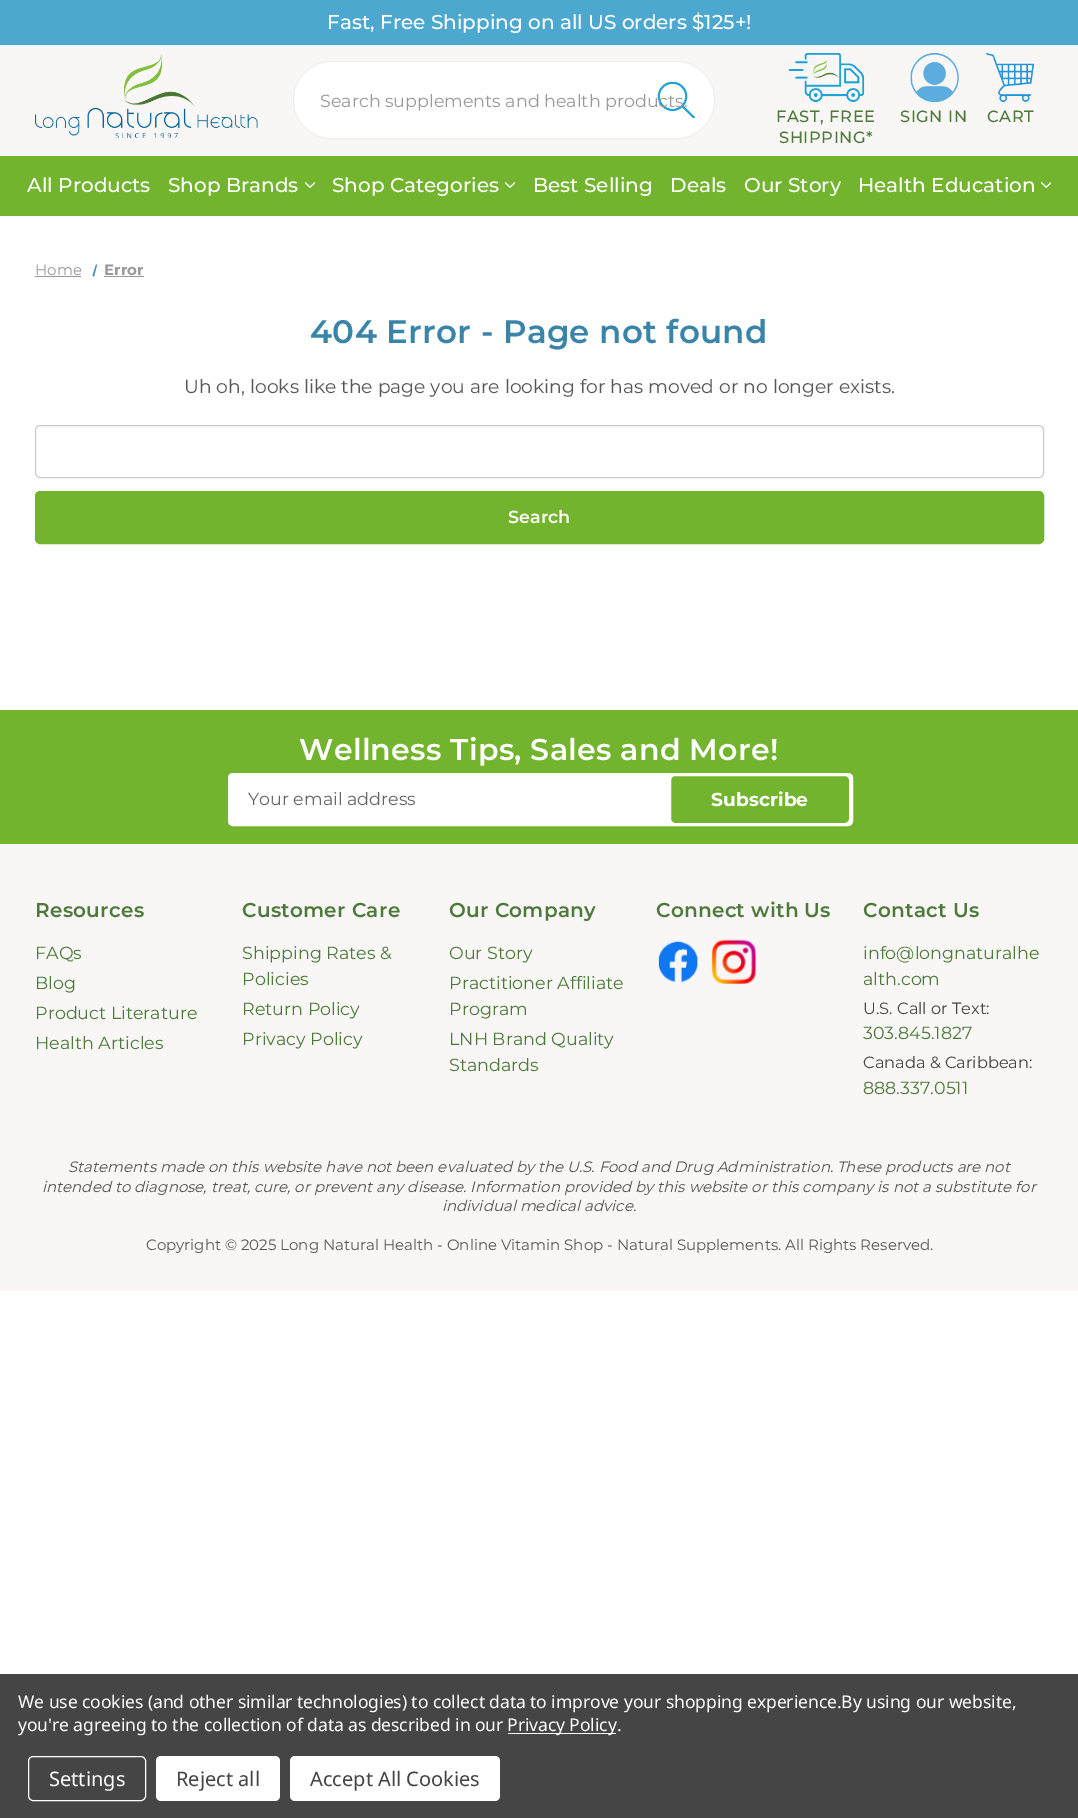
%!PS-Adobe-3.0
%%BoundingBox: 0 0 1078 1818
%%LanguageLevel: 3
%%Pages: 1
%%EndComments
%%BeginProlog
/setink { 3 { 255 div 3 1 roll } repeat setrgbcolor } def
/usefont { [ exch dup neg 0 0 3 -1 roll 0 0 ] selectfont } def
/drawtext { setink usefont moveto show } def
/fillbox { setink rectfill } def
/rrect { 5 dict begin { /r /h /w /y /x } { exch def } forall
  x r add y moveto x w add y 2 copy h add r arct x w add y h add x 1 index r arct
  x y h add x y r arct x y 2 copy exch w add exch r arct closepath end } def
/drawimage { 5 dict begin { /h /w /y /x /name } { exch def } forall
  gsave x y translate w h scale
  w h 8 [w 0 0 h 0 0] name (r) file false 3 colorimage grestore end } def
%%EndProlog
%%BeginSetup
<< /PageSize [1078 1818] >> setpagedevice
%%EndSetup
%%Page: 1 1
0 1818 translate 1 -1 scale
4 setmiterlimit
0 0 1078 1818 255 255 255 fillbox
0 0 1078 45 76 168 207 fillbox
(Fast, Free Shipping on all US orders $125+!) 327 29 /Montserrat-Medium 20 255 255 255 drawtext
0 45 1078 111 248 247 246 fillbox
(assets/img1.rgb) 35 54 223 85 drawimage
255 255 255 setink
293 61 422 78 38 rrect fill
(assets/img2.rgb) 657 81 38 38 drawimage
238 238 238 setink
293.5 61.5 421 77 37.5 rrect stroke
(Search supplements and health products.) 320 107 /Montserrat-Regular 17.5 153 153 153 drawtext
(assets/img3.rgb) 788 53 77 49 drawimage
/Montserrat-Medium 16.25 usefont
77 121 59 setink
776 122 moveto 0.6 0 (FAST, FREE) ashow
779 143 moveto 0.6 0 (SHIPPING*) ashow
(assets/img4.rgb) 910 53 49 50 drawimage
900 122 moveto 0.6 0 (SIGN IN) ashow
(assets/img5.rgb) 986 52 49 50 drawimage
987 122 moveto 0.6 0 (CART) ashow
0 156 1078 60 115 180 47 fillbox
(All Products) 27 192 /Montserrat-Medium 20 255 255 255 drawtext
(Shop Brands) 168 192 /Montserrat-Medium 20 255 255 255 drawtext
(assets/img6.rgb) 305 182 10 6 drawimage
(Shop Categories) 332 192 /Montserrat-Medium 20 255 255 255 drawtext
(assets/img6.rgb) 505 182 10 6 drawimage
(Best Selling) 533 192 /Montserrat-Medium 20 255 255 255 drawtext
(Deals) 670 192 /Montserrat-Medium 20 255 255 255 drawtext
(Our Story) 744 192 /Montserrat-Medium 20 255 255 255 drawtext
(Health Education) 858 192 /Montserrat-Medium 20 255 255 255 drawtext
(assets/img7.rgb) 1041 182 10 6 drawimage
(Home) 35 275 /Montserrat-Regular 15 153 153 153 drawtext
35 276 46 1 153 153 153 fillbox
64 144 184 setink
96 264.5 moveto 97 265 lineto 94 276.5 lineto 92.5 276 lineto closepath fill
(Error) 104 275 /Montserrat-Bold 15 153 153 153 drawtext
104 276 40 1 153 153 153 fillbox
/Montserrat-SemiBold 32.5 usefont
57 132 169 setink
310 343 moveto 0.3 0 (404 Error - Page not found) ashow
(Uh oh, looks like the page you are looking for has moved or no longer exists.) 184 393 /Montserrat-Regular 18.75 87 87 87 drawtext
204 204 204 setink
35.5 425.5 1008 52 4.5 rrect stroke
115 180 47 setink
35.5 491.5 1008 52 4.5 rrect gsave fill grestore
stroke
(Search) 508 523 /Montserrat-SemiBold 17.5 255 255 255 drawtext
0 844 1078 447 248 247 246 fillbox
0 710 1078 134 115 180 47 fillbox
/Montserrat-SemiBold 30 usefont
255 255 255 setink
299 760 moveto 0.3 0 (Wellness Tips, Sales and More!) ashow
229.5 774.5 622 50 3.5 rrect gsave fill grestore
3 setlinewidth
stroke
(Your email address) 248 805 /Montserrat-Regular 17.5 102 102 102 drawtext
115 180 47 setink
670.5 775.5 179 48 4.5 rrect gsave fill grestore
255 255 255 setink
1 setlinewidth
stroke
(Subscribe) 711 806 /Montserrat-Bold 18.75 255 255 255 drawtext
/Montserrat-SemiBold 20 usefont
77 121 59 setink
35 917 moveto 0.3 0 (Resources) ashow
(FAQs) 35 959 /Montserrat-Regular 17.5 77 121 59 drawtext
(Blog) 35 989 /Montserrat-Regular 17.5 77 121 59 drawtext
(Product Literature) 35 1019 /Montserrat-Regular 17.5 77 121 59 drawtext
(Health Articles) 35 1049 /Montserrat-Regular 17.5 77 121 59 drawtext
/Montserrat-SemiBold 20 usefont
242 917 moveto 0.3 0 (Customer Care) ashow
(Shipping Rates &) 242 959 /Montserrat-Regular 17.5 77 121 59 drawtext
(Policies) 242 985 /Montserrat-Regular 17.5 77 121 59 drawtext
(Return Policy) 242 1015 /Montserrat-Regular 17.5 77 121 59 drawtext
(Privacy Policy) 242 1045 /Montserrat-Regular 17.5 77 121 59 drawtext
/Montserrat-SemiBold 20 usefont
449 917 moveto 0.3 0 (Our Company) ashow
(Our Story) 449 959 /Montserrat-Regular 17.5 77 121 59 drawtext
(Practitioner Affiliate) 449 989 /Montserrat-Regular 17.5 77 121 59 drawtext
(Program) 449 1015 /Montserrat-Regular 17.5 77 121 59 drawtext
(LNH Brand Quality) 449 1045 /Montserrat-Regular 17.5 77 121 59 drawtext
(Standards) 449 1071 /Montserrat-Regular 17.5 77 121 59 drawtext
/Montserrat-SemiBold 20 usefont
656 917 moveto 0.3 0 (Connect with Us) ashow
(assets/img8.rgb) 658 941 40 42 drawimage
(assets/img9.rgb) 711 939 46 45 drawimage
863 917 moveto 0.3 0 (Contact Us) ashow
(info@longnaturalhe) 863 959 /Montserrat-Regular 17.5 77 121 59 drawtext
(alth.com) 863 985 /Montserrat-Regular 17.5 77 121 59 drawtext
(U.S. Call or Text:) 863 1014 /Montserrat-Regular 16.25 68 68 68 drawtext
(303.845.1827) 863 1039 /Montserrat-Regular 17.5 77 121 59 drawtext
(Canada & Caribbean:) 863 1068 /Montserrat-Regular 16.25 68 68 68 drawtext
(888.337.0511) 863 1094 /Montserrat-Regular 17.5 77 121 59 drawtext
(Statements made on this website have not been evaluated by the U.S. Food and Drug Administration. These products are not) 68 1172 /Montserrat-Italic 15 87 87 87 drawtext
(intended to diagnose, treat, cure, or prevent any disease. Information provided by this website or this company is not a substitute for) 42 1192 /Montserrat-Italic 15 87 87 87 drawtext
(individual medical advice.) 442 1211 /Montserrat-Italic 15 87 87 87 drawtext
(Copyright © 2025 Long Natural Health - Online Vitamin Shop - Natural Supplements. All Rights Reserved.) 146 1250 /Montserrat-Regular 15 87 87 87 drawtext
0 1674 1078 144 69 69 69 fillbox
/NotoSans-Regular 17.5 usefont
255 255 255 setink
18 1708 moveto -0.06 0 (We use cookies \(and other similar technologies\) to collect data to improve your shopping experience.By using our website,) ashow
18 1731 moveto -0.06 0 (you're agreeing to the collection of data as described in our) ashow
508 1733 108 1 255 255 255 fillbox
507 1731 moveto -0.06 0 (Privacy Policy.) ashow
28.5 1756.5 117 44 4.5 rrect stroke
(Settings) 49 1786 /NotoSans-Regular 20 255 255 255 drawtext
156 1756 124 45 5 rrect fill
(Reject all) 176 1786 /NotoSans-Regular 20 68 68 68 drawtext
255 255 255 setink
290 1756 210 45 5 rrect fill
(Accept All Cookies) 310 1786 /NotoSans-Regular 20 68 68 68 drawtext
showpage
%%EOF
